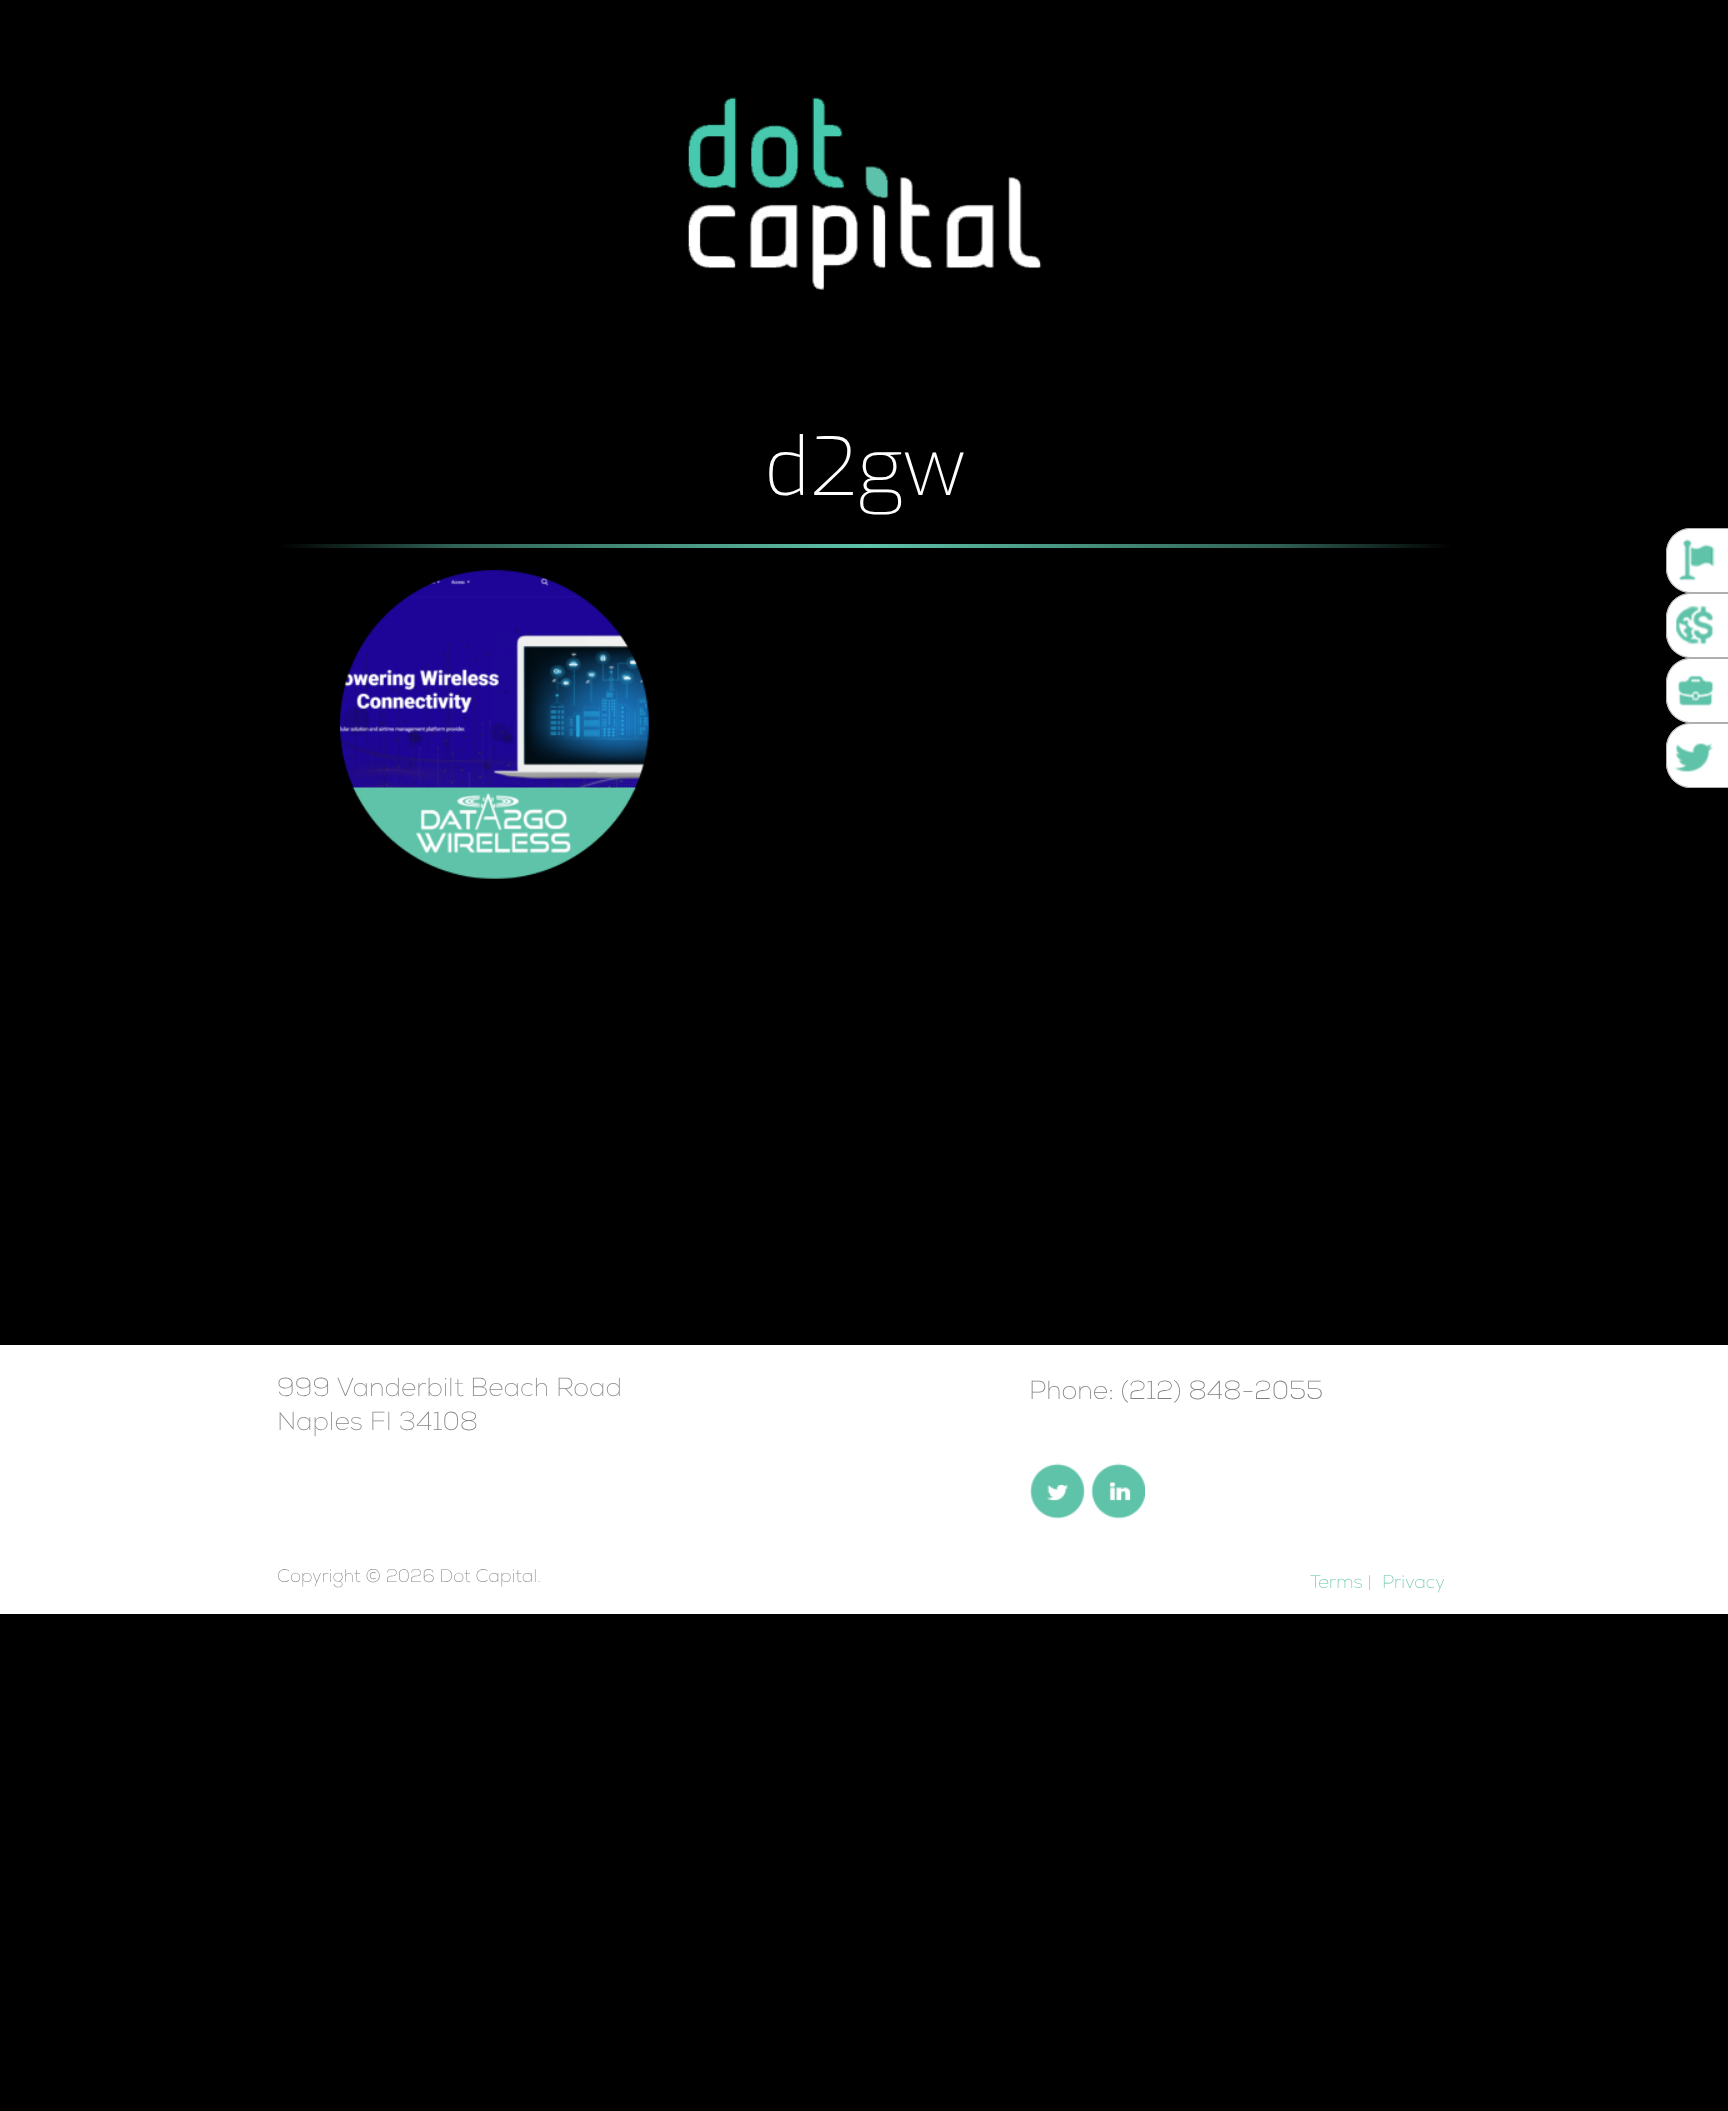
<!DOCTYPE html>
<meta charset="utf-8">
<style>body { margin: 0 } canvas { display: block }</style>
<canvas id="canvas" width="1728" height="2111"></canvas>
<script type="module">
  const canvas = document.getElementById("canvas");
  const g = canvas.getContext("2d");
  g.miterLimit = 4;
  g.fontKerning = "normal";
  function drawText(s, x, y, [font, color]) {
    g.font = font;
    g.fillStyle = color;
    g.fillText(s, x, y);
  }
  function fillBox(x, y, w, h, color) {
    g.fillStyle = color;
    g.fillRect(x, y, w, h);
  }
  async function drawPicture(src, x, y, w, h) {
    const img = new Image();
    img.src = src;
    await img.decode();
    g.drawImage(img, x, y, w, h);
  }
  let gradient;

  const s1 = ["200 80px Exo", "#FFFFFF"];
  const s2 = ["100 26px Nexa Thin", "#888888"];
  const s3 = ["100 26px Nexa Thin", "#7F7F7F"];
  const s4 = ["100 18.25px Nexa Thin", "#888888"];
  const s5 = ["100 18.25px Nexa Thin", "#5FC3A9"];

  fillBox(0, 0, 1728, 2111, "#000000");
  await drawPicture("pic1.png", 687, 97, 355, 193);
  drawText("d2gw", 764, 495, s1);
  gradient = g.createLinearGradient(278, 546, 1453, 546);
  gradient.addColorStop(0, "#000000");
  gradient.addColorStop(0.15, "#306255");
  gradient.addColorStop(0.5, "#5FC3A9");
  gradient.addColorStop(0.85, "#306255");
  gradient.addColorStop(1, "#000000");
  g.fillStyle = gradient;
  g.fillRect(278, 544, 1175, 4);
  await drawPicture("pic2.png", 340, 570, 309, 309);
  g.fillStyle = "#FFFFFF";
  g.beginPath();
  g.moveTo(1691, 528);
  g.lineTo(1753, 528);
  g.lineTo(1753, 593);
  g.lineTo(1691, 593);
  g.bezierCurveTo(1677, 593, 1666, 582, 1666, 568);
  g.lineTo(1666, 553);
  g.bezierCurveTo(1666, 539, 1677, 528, 1691, 528);
  g.closePath();
  g.fill();
  await drawPicture("pic3.png", 1678, 538, 38, 43);
  g.beginPath();
  g.moveTo(1691, 528.5);
  g.lineTo(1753.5, 528.5);
  g.lineTo(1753.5, 592.5);
  g.lineTo(1691, 592.5);
  g.bezierCurveTo(1677.5, 592.5, 1666.5, 581.5, 1666.5, 568);
  g.lineTo(1666.5, 553);
  g.bezierCurveTo(1666.5, 539.5, 1677.5, 528.5, 1691, 528.5);
  g.closePath();
  g.strokeStyle = "#AFAFAF";
  g.stroke();
  g.beginPath();
  g.moveTo(1691, 593);
  g.lineTo(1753, 593);
  g.lineTo(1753, 658);
  g.lineTo(1691, 658);
  g.bezierCurveTo(1677, 658, 1666, 647, 1666, 633);
  g.lineTo(1666, 618);
  g.bezierCurveTo(1666, 604, 1677, 593, 1691, 593);
  g.closePath();
  g.fill();
  await drawPicture("pic4.png", 1675, 605, 39, 40);
  g.beginPath();
  g.moveTo(1691, 593.5);
  g.lineTo(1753.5, 593.5);
  g.lineTo(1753.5, 657.5);
  g.lineTo(1691, 657.5);
  g.bezierCurveTo(1677.5, 657.5, 1666.5, 646.5, 1666.5, 633);
  g.lineTo(1666.5, 618);
  g.bezierCurveTo(1666.5, 604.5, 1677.5, 593.5, 1691, 593.5);
  g.closePath();
  g.stroke();
  g.beginPath();
  g.moveTo(1691, 658);
  g.lineTo(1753, 658);
  g.lineTo(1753, 723);
  g.lineTo(1691, 723);
  g.bezierCurveTo(1677, 723, 1666, 712, 1666, 698);
  g.lineTo(1666, 683);
  g.bezierCurveTo(1666, 669, 1677, 658, 1691, 658);
  g.closePath();
  g.fill();
  await drawPicture("pic5.png", 1678, 675, 36, 31);
  g.beginPath();
  g.moveTo(1691, 658.5);
  g.lineTo(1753.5, 658.5);
  g.lineTo(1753.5, 722.5);
  g.lineTo(1691, 722.5);
  g.bezierCurveTo(1677.5, 722.5, 1666.5, 711.5, 1666.5, 698);
  g.lineTo(1666.5, 683);
  g.bezierCurveTo(1666.5, 669.5, 1677.5, 658.5, 1691, 658.5);
  g.closePath();
  g.stroke();
  g.beginPath();
  g.moveTo(1691, 723);
  g.lineTo(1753, 723);
  g.lineTo(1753, 788);
  g.lineTo(1691, 788);
  g.bezierCurveTo(1677, 788, 1666, 777, 1666, 763);
  g.lineTo(1666, 748);
  g.bezierCurveTo(1666, 734, 1677, 723, 1691, 723);
  g.closePath();
  g.fill();
  await drawPicture("pic6.png", 1674, 743, 39, 29);
  g.beginPath();
  g.moveTo(1691, 723.5);
  g.lineTo(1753.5, 723.5);
  g.lineTo(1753.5, 787.5);
  g.lineTo(1691, 787.5);
  g.bezierCurveTo(1677.5, 787.5, 1666.5, 776.5, 1666.5, 763);
  g.lineTo(1666.5, 748);
  g.bezierCurveTo(1666.5, 734.5, 1677.5, 723.5, 1691, 723.5);
  g.closePath();
  g.stroke();
  fillBox(0, 1345, 1728, 269, "#FFFFFF");
  drawText("999 Vanderbilt Beach Road", 277, 1396, s2);
  drawText("Naples Fl 34108", 277, 1430, s2);
  drawText("Phone: (212) 848-2055", 1029, 1399, s3);
  await drawPicture("pic7.png", 1030, 1463, 55, 56);
  await drawPicture("pic8.png", 1091, 1463, 54, 56);
  drawText("Copyright © 2026 Dot Capital.", 277, 1582, s4);
  drawText("Terms |", 1310, 1588, s5);
  drawText("Privacy", 1382, 1588, s5);
</script>
